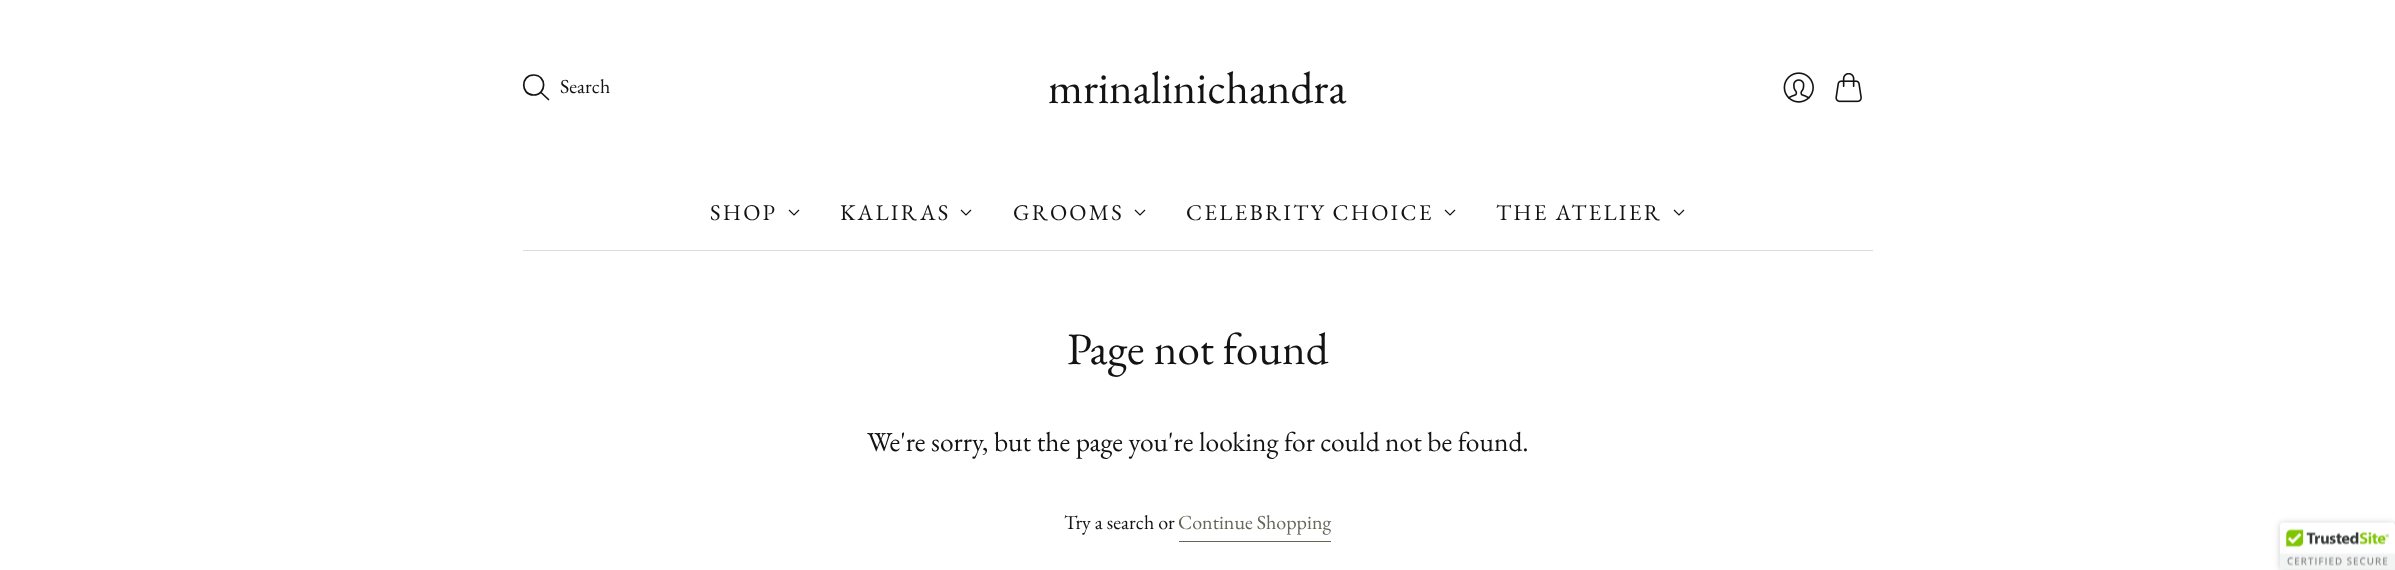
<!DOCTYPE html>
<meta charset="utf-8">
<style>body { margin: 0 } canvas { display: block }</style>
<canvas id="canvas" width="2395" height="570"></canvas>
<script type="module">
  const canvas = document.getElementById("canvas");
  const g = canvas.getContext("2d");
  g.miterLimit = 4;
  g.fontKerning = "normal";
  function drawText(s, x, y, [font, color]) {
    g.font = font;
    g.fillStyle = color;
    g.fillText(s, x, y);
  }
  function fillBox(x, y, w, h, color) {
    g.fillStyle = color;
    g.fillRect(x, y, w, h);
  }
  async function drawPicture(src, x, y, w, h) {
    const img = new Image();
    img.src = src;
    await img.decode();
    g.drawImage(img, x, y, w, h);
  }

  const s1 = ["20px EB Garamond", "#131313"];
  const s2 = ["45px EB Garamond", "#131313"];
  const s3 = ["22.5px EB Garamond", "#131313"];
  const s4 = ["27.5px EB Garamond", "#131313"];
  const s5 = ["20px EB Garamond", "#636859"];

  fillBox(0, 0, 2395, 570, "#FFFFFF");
  g.beginPath();
  g.moveTo(533.5, 95);
  g.bezierCurveTo(547, 95, 547, 75, 533.5, 75);
  g.bezierCurveTo(520.5, 75, 520.5, 95, 533.5, 95);
  g.closePath();
  g.moveTo(548.5, 99.5);
  g.lineTo(541, 92.5);
  g.strokeStyle = "#131313";
  g.lineWidth = 1.7;
  g.lineCap = "round";
  g.lineJoin = "round";
  g.stroke();
  drawText("Search", 560, 93, s1);
  await drawPicture("pic1.png", 1783, 72, 31, 31);
  await drawPicture("pic2.png", 1835, 73, 27, 30);
  fillBox(523, 250, 1350, 1, "#DCDCDC");
  drawText("mrinalinichandra", 1048, 103, s2);
  g.letterSpacing = "2.25px";
  drawText("SHOP", 710, 220, s3);
  g.beginPath();
  g.moveTo(789, 210);
  g.lineTo(794, 215);
  g.lineTo(799, 210);
  g.lineWidth = 1.2;
  g.lineCap = "butt";
  g.lineJoin = "miter";
  g.stroke();
  drawText("KALIRAS", 840, 220, s3);
  g.beginPath();
  g.moveTo(961, 210);
  g.lineTo(966, 215);
  g.lineTo(971, 210);
  g.stroke();
  drawText("GROOMS", 1013, 220, s3);
  g.beginPath();
  g.moveTo(1135, 210);
  g.lineTo(1140, 215);
  g.lineTo(1145, 210);
  g.stroke();
  drawText("CELEBRITY CHOICE", 1186, 220, s3);
  g.beginPath();
  g.moveTo(1445, 210);
  g.lineTo(1450, 215);
  g.lineTo(1455, 210);
  g.stroke();
  drawText("THE ATELIER", 1496, 220, s3);
  g.beginPath();
  g.moveTo(1674, 210);
  g.lineTo(1679, 215);
  g.lineTo(1684, 210);
  g.stroke();
  g.letterSpacing = "0px";
  drawText("Page not found", 1067, 364, s2);
  drawText("We're sorry, but the page you're looking for could not be found.", 867, 451, s4);
  drawText("Try a search or", 1064, 529, s1);
  drawText("Continue Shopping", 1178, 529, s5);
  fillBox(1179, 541, 152, 1, "#636859");
  g.fillStyle = "rgba(0, 0, 0, 0.2)";
  g.filter = "blur(3px)";
  g.beginPath();
  g.roundRect(2280, 523, 115, 47, 2.5);
  g.fill();
  g.filter = "none";
  await drawPicture("pic3.png", 2280, 522, 115, 48);
</script>
